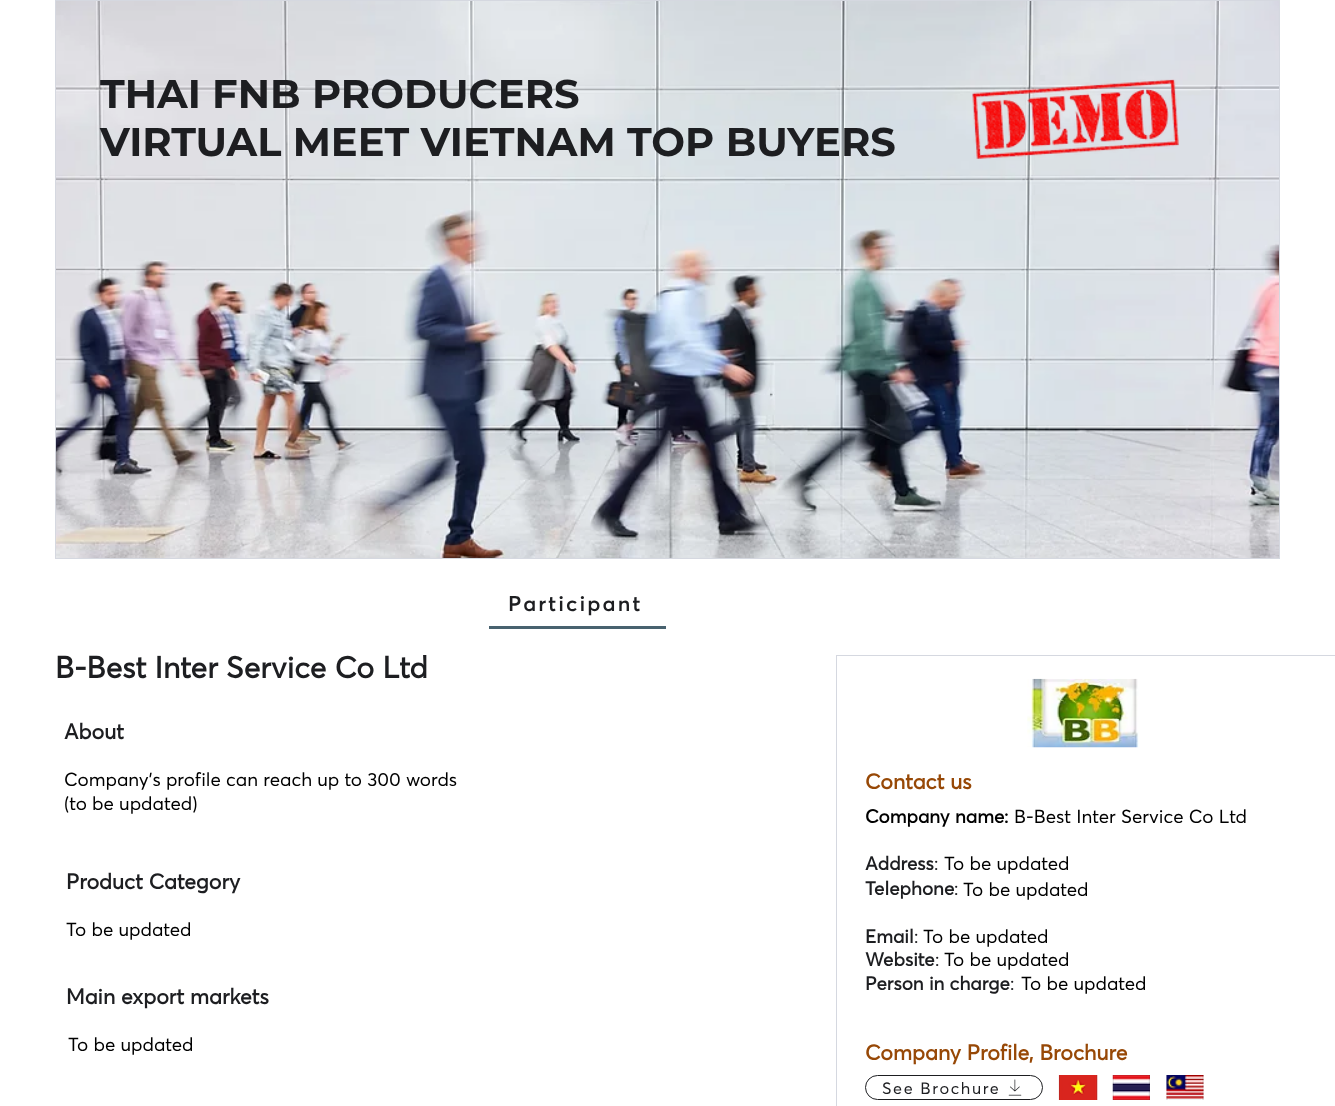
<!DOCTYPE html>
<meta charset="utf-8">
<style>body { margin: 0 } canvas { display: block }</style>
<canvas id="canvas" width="1335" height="1106"></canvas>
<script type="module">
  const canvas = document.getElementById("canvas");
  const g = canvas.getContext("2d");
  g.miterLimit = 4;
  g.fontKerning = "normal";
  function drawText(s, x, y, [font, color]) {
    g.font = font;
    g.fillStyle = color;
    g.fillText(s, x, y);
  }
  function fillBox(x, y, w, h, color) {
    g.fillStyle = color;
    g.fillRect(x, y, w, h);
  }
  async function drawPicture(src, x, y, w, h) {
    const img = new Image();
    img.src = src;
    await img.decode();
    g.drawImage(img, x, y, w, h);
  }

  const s1 = ["bold 40px Montserrat", "#1D1E21"];
  const s2 = ["600 21.25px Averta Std", "#1D1E21"];
  const s3 = ["bold 30px Averta Std", "#1D1E21"];
  const s4 = ["bold 21.25px Averta Std", "#1D1E21"];
  const s5 = ["18.75px Averta Std", "#000000"];
  const s6 = ["bold 21.25px Averta Std", "#974806"];
  const s7 = ["bold 18.75px Averta Std", "#000000"];
  const s8 = ["bold 18.75px Averta Std", "#1D1E21"];
  const s9 = ["18.75px Averta Std", "#1D1E21"];
  const s10 = ["16.25px Averta Std", "#1D1E21"];

  fillBox(0, 0, 1335, 1106, "#FFFFFF");
  await drawPicture("pic1.png", 56, 1, 1223, 557);
  g.strokeStyle = "#D5D8E0";
  g.strokeRect(55.5, 0.5, 1224, 558);
  await drawPicture("pic2.png", 972, 79, 207, 80);
  drawText("THAI FNB PRODUCERS", 100, 108, s1);
  drawText("VIRTUAL MEET VIETNAM TOP BUYERS", 100, 156, s1);
  fillBox(489, 626, 177, 3, "#48626F");
  g.letterSpacing = "2.1px";
  drawText("Participant", 508, 611, s2);
  g.letterSpacing = "0px";
  drawText("B-Best Inter Service Co Ltd", 55, 678, s3);
  drawText("About", 64, 739, s4);
  drawText("Company's profile can reach up to 300 words", 64, 786, s5);
  drawText("(to be updated)", 64, 810, s5);
  drawText("Product Category", 66, 889, s4);
  drawText("To be updated", 66, 936, s5);
  drawText("Main export markets", 66, 1004, s4);
  drawText("To be updated", 68, 1051, s5);
  g.strokeRect(836.5, 655.5, 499, 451);
  await drawPicture("pic3.png", 1027, 678, 112, 70);
  drawText("Contact us", 865, 789, s6);
  drawText("Company name:", 865, 823, s7);
  drawText("B-Best Inter Service Co Ltd", 1014, 823, s5);
  drawText("Address", 865, 870, s8);
  drawText(":", 934, 870, s9);
  drawText("To be updated", 944, 870, s5);
  drawText("Telephone", 865, 895, s8);
  drawText(":", 954, 895, s9);
  drawText("To be updated", 963, 896, s5);
  drawText("Email", 865, 943, s8);
  drawText(":", 914, 943, s9);
  drawText("To be updated", 923, 943, s5);
  drawText("Website", 865, 966, s8);
  drawText(":", 935, 966, s9);
  drawText("To be updated", 944, 966, s5);
  drawText("Person in charge", 865, 990, s8);
  drawText(":", 1010, 990, s9);
  drawText("To be updated", 1021, 990, s5);
  drawText("Company Profile, Brochure", 865, 1060, s6);
  g.beginPath();
  g.roundRect(865.5, 1075.5, 177, 24, 12);
  g.strokeStyle = "#1D1E21";
  g.stroke();
  g.letterSpacing = "1.6px";
  drawText("See Brochure", 882, 1094, s10);
  await drawPicture("pic4.png", 1008, 1079, 14, 17);
  await drawPicture("pic5.png", 1058, 1075, 40, 25);
  await drawPicture("pic6.png", 1112, 1075, 38, 25);
  await drawPicture("pic7.png", 1166, 1075, 38, 25);
</script>
